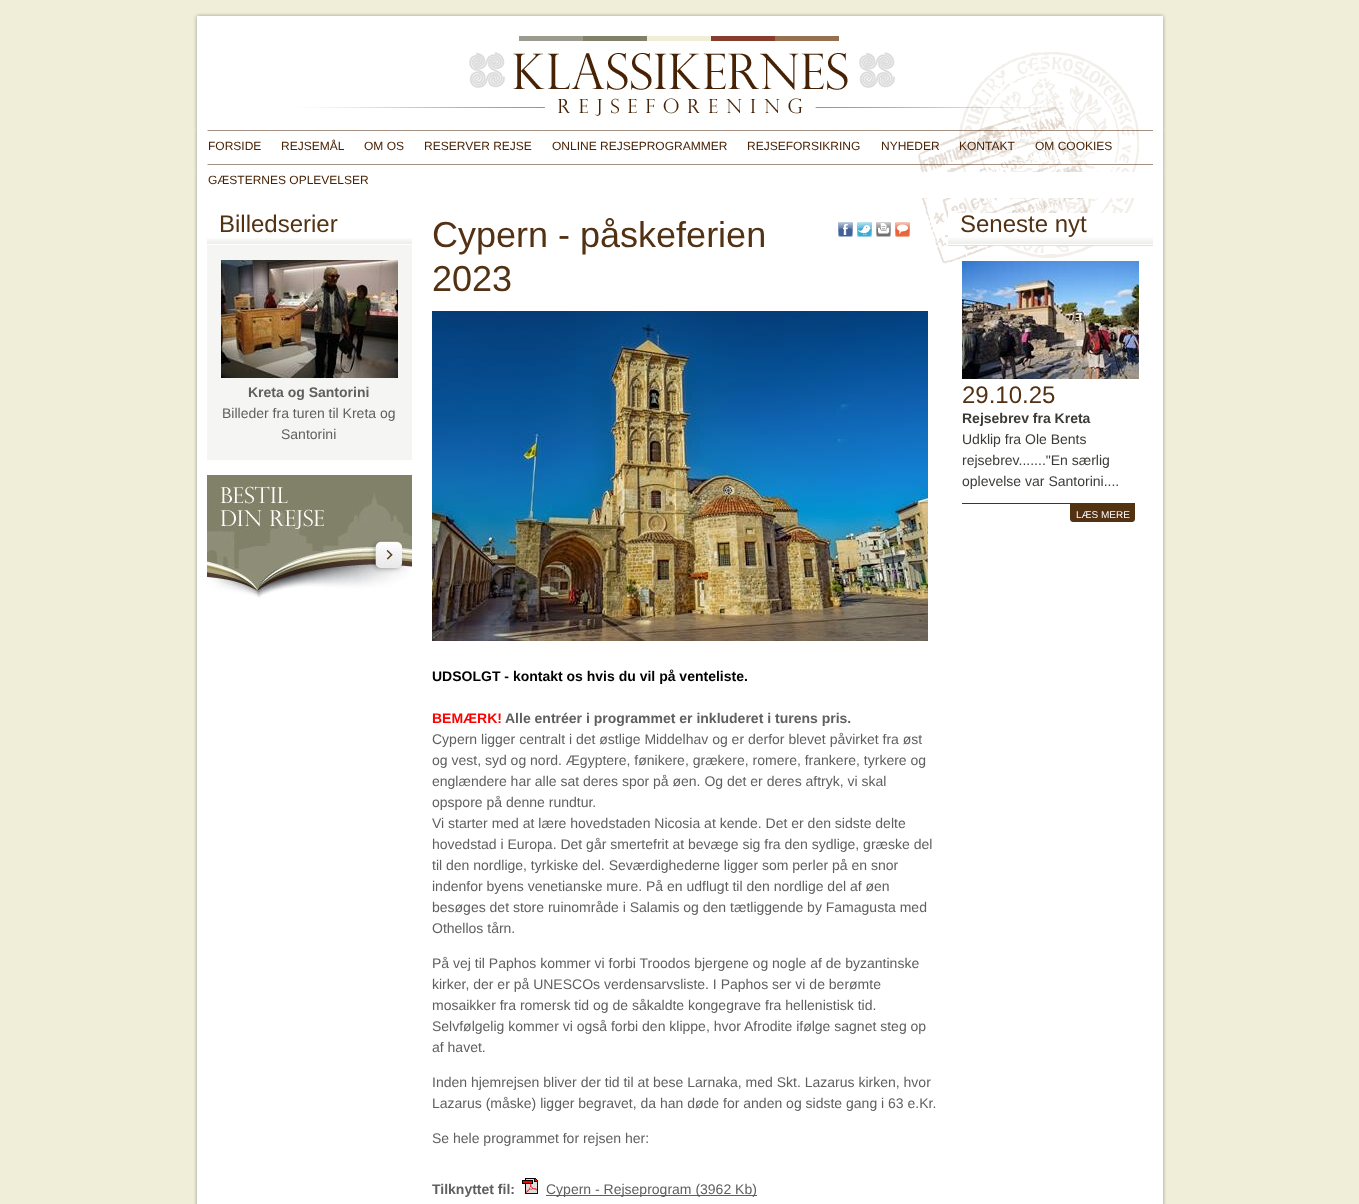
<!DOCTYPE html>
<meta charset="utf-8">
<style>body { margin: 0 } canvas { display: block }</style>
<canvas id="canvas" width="1359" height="1204"></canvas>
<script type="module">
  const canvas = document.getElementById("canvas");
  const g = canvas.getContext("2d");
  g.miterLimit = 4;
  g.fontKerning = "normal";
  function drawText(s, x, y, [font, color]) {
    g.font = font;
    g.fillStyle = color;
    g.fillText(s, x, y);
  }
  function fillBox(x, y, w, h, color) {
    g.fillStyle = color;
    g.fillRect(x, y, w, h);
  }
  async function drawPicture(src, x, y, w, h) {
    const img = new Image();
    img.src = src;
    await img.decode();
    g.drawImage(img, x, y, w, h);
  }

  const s1 = ["12px Liberation Sans", "#472205"];
  const s2 = ["24px Liberation Sans", "#533113"];
  const s3 = ["bold 14px Liberation Sans", "#5F5F5F"];
  const s4 = ["14px Liberation Sans", "#5F5F5F"];
  const s5 = ["36px Liberation Sans", "#533113"];
  const s6 = ["bold 14px Liberation Sans", "#000000"];
  const s7 = ["bold 14px Liberation Sans", "#FF0000"];
  const s8 = ["bold 14px Liberation Sans", "#3B3A36"];
  const s9 = ["14px Liberation Sans", "#3B3A36"];
  const s10 = ["10px Liberation Sans", "#FFFFFF"];

  fillBox(0, 0, 1359, 1204, "#F0EED8");
  await drawPicture("pic1.png", 194, 130, 972, 42);
  await drawPicture("pic2.png", 191, 13, 975, 117);
  drawText("FORSIDE", 208, 150, s1);
  drawText("REJSEMÅL", 281, 150, s1);
  drawText("OM OS", 364, 150, s1);
  drawText("RESERVER REJSE", 424, 150, s1);
  drawText("ONLINE REJSEPROGRAMMER", 552, 150, s1);
  drawText("REJSEFORSIKRING", 747, 150, s1);
  drawText("NYHEDER", 881, 150, s1);
  drawText("KONTAKT", 959, 150, s1);
  drawText("OM COOKIES", 1035, 150, s1);
  await drawPicture("pic3.png", 194, 172, 972, 1032);
  drawText("GÆSTERNES OPLEVELSER", 208, 184, s1);
  await drawPicture("pic4.png", 922, 198, 212, 66);
  await drawPicture("pic5.png", 207, 238, 205, 6);
  drawText("Billedserier", 219, 232, s2);
  fillBox(207, 245, 205, 215, "#F5F5F4");
  await drawPicture("pic6.png", 221, 260, 177, 118);
  drawText("Kreta og Santorini", 248, 397, s3);
  drawText("Billeder fra turen til Kreta og", 222, 418, s4);
  drawText("Santorini", 281, 439, s4);
  await drawPicture("pic7.png", 207, 475, 205, 124);
  drawText("Cypern - påskeferien", 432, 247, s5);
  drawText("2023", 432, 291, s5);
  await drawPicture("pic8.png", 838, 222, 15, 15);
  await drawPicture("pic9.png", 857, 222, 15, 15);
  await drawPicture("pic10.png", 876, 222, 15, 15);
  await drawPicture("pic11.png", 895, 222, 15, 15);
  await drawPicture("pic12.png", 432, 311, 496, 330);
  drawText("UDSOLGT - kontakt os hvis du vil på venteliste.", 432, 681, s6);
  drawText("BEMÆRK!", 432, 723, s7);
  drawText("Alle entréer i programmet er inkluderet i turens pris.", 505, 723, s3);
  drawText("Cypern ligger centralt i det østlige Middelhav og er derfor blevet påvirket fra øst", 432, 744, s4);
  drawText("og vest, syd og nord. Ægyptere, fønikere, grækere, romere, frankere, tyrkere og", 432, 765, s4);
  drawText("englændere har alle sat deres spor på øen. Og det er deres aftryk, vi skal", 432, 786, s4);
  drawText("opspore på denne rundtur.", 432, 807, s4);
  drawText("Vi starter med at lære hovedstaden Nicosia at kende. Det er den sidste delte", 432, 828, s4);
  drawText("hovedstad i Europa. Det går smertefrit at bevæge sig fra den sydlige, græske del", 432, 849, s4);
  drawText("til den nordlige, tyrkiske del. Seværdighederne ligger som perler på en snor", 432, 870, s4);
  drawText("indenfor byens venetianske mure. På en udflugt til den nordlige del af øen", 432, 891, s4);
  drawText("besøges det store ruinområde i Salamis og den tætliggende by Famagusta med", 432, 912, s4);
  drawText("Othellos tårn.", 432, 933, s4);
  drawText("På vej til Paphos kommer vi forbi Troodos bjergene og nogle af de byzantinske", 432, 968, s4);
  drawText("kirker, der er på UNESCOs verdensarvsliste. I Paphos ser vi de berømte", 432, 989, s4);
  drawText("mosaikker fra romersk tid og de såkaldte kongegrave fra hellenistisk tid.", 432, 1010, s4);
  drawText("Selvfølgelig kommer vi også forbi den klippe, hvor Afrodite ifølge sagnet steg op", 432, 1031, s4);
  drawText("af havet.", 432, 1052, s4);
  drawText("Inden hjemrejsen bliver der tid til at bese Larnaka, med Skt. Lazarus kirken, hvor", 432, 1087, s4);
  drawText("Lazarus (måske) ligger begravet, da han døde for anden og sidste gang i 63 e.Kr.", 432, 1108, s4);
  drawText("Se hele programmet for rejsen her:", 432, 1143, s4);
  drawText("Tilknyttet fil:", 432, 1194, s3);
  await drawPicture("pic13.png", 522, 1178, 16, 16);
  fillBox(546, 1195, 211, 1, "#5F5F5F");
  drawText("Cypern - Rejseprogram (3962 Kb)", 546, 1194, s4);
  await drawPicture("pic14.png", 948, 213, 205, 32);
  drawText("Seneste nyt", 960, 232, s2);
  fillBox(948, 245, 205, 1, "#E0E0E0");
  await drawPicture("pic15.png", 962, 261, 177, 118);
  drawText("29.10.25", 962, 403, s2);
  drawText("Rejsebrev fra Kreta", 962, 423, s8);
  drawText("Udklip fra Ole Bents", 962, 444, s9);
  drawText("rejsebrev.......\"En særlig", 962, 465, s9);
  drawText("oplevelse var Santorini....", 962, 486, s9);
  await drawPicture("pic16.png", 962, 503, 173, 19);
  drawText("LÆS MERE", 1076, 518, s10);
</script>
